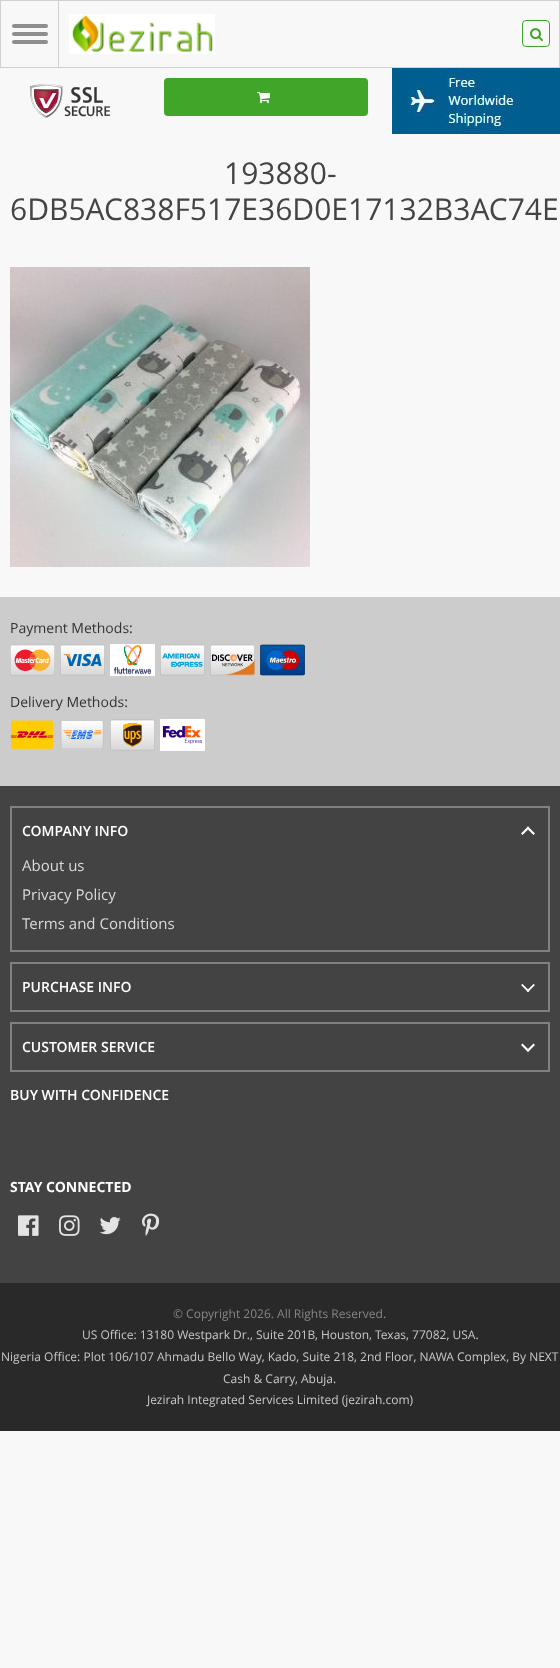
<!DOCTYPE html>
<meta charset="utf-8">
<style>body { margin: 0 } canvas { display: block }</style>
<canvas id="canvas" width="560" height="1668"></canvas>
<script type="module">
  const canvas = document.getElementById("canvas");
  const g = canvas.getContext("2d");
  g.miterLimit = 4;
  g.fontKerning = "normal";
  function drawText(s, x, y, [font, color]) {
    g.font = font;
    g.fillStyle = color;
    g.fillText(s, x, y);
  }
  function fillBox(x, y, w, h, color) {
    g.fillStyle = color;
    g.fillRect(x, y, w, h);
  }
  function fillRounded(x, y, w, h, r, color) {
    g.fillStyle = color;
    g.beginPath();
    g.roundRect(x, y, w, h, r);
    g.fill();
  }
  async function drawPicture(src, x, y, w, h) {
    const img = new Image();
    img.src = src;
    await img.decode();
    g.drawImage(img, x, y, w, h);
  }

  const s1 = ["30px Open Sans", "#444444"];
  const s2 = ["14px Open Sans", "#333333"];
  const s3 = ["600 14px Open Sans", "#FFFFFF"];
  const s4 = ["15px Open Sans", "#DADADA"];
  const s5 = ["bold 14px Open Sans", "#FFFFFF"];
  const s6 = ["12px Open Sans", "#868686"];
  const s7 = ["12px Open Sans", "#C8C8C8"];

  fillBox(0, 0, 560, 1668, "#F8F8F8");
  g.strokeStyle = "#D0D0D0";
  g.strokeRect(0.5, 0.5, 559, 67);
  fillBox(58, 1, 1, 66, "#D0D0D0");
  fillRounded(12, 24, 36, 4, 2, "#8E8E8E");
  fillRounded(12, 32, 36, 4, 2, "#8E8E8E");
  fillRounded(12, 40, 36, 4, 2, "#8E8E8E");
  await drawPicture("pic1.png", 69, 14, 146, 40);
  await drawPicture("pic2.png", 30, 84, 80, 34);
  fillRounded(164, 78, 204, 38, 4, "#40A629");
  await drawPicture("pic3.png", 257, 92, 13, 12);
  fillBox(392, 68, 168, 66, "#005E8E");
  await drawPicture("pic4.png", 407, 68, 113, 65);
  g.beginPath();
  g.roundRect(522.5, 20.5, 27, 26, 3.5);
  g.strokeStyle = "#40A629";
  g.stroke();
  await drawPicture("pic5.png", 530, 28, 13, 14);
  drawText("193880-", 224, 184, s1);
  drawText("6DB5AC838F517E36D0E17132B3AC74E", 10, 220, s1);
  await drawPicture("pic6.png", 10, 267, 300, 300);
  fillBox(0, 786, 560, 497, "#434343");
  fillBox(0, 597, 560, 189, "#CCCCCC");
  drawText("Payment Methods:", 10, 633, s2);
  await drawPicture("pic7.png", 10, 644, 45, 32);
  await drawPicture("pic8.png", 60, 644, 45, 32);
  await drawPicture("pic9.png", 110, 644, 45, 32);
  await drawPicture("pic10.png", 160, 644, 45, 32);
  await drawPicture("pic11.png", 210, 644, 45, 32);
  await drawPicture("pic12.png", 260, 644, 45, 32);
  drawText("Delivery Methods:", 10, 707, s2);
  await drawPicture("pic13.png", 11, 720, 43, 29);
  await drawPicture("pic14.png", 60, 721, 44, 28);
  await drawPicture("pic15.png", 110, 719, 45, 32);
  await drawPicture("pic16.png", 160, 719, 45, 32);
  g.strokeStyle = "#818181";
  g.lineWidth = 2;
  g.strokeRect(11, 807, 538, 144);
  drawText("COMPANY INFO", 22, 836, s3);
  g.beginPath();
  g.moveTo(521, 833.5);
  g.lineTo(528, 826.5);
  g.lineTo(529.5, 828);
  g.lineTo(522.5, 835);
  g.closePath();
  g.fill();
  g.beginPath();
  g.moveTo(526.5, 828);
  g.lineTo(528, 826.5);
  g.lineTo(535, 833.5);
  g.lineTo(533.5, 835);
  g.closePath();
  g.fill();
  drawText("About us", 22, 871, s4);
  drawText("Privacy Policy", 22, 900, s4);
  drawText("Terms and Conditions", 22, 929, s4);
  g.strokeRect(11, 963, 538, 48);
  drawText("PURCHASE INFO", 22, 992, s3);
  g.beginPath();
  g.moveTo(535, 985);
  g.lineTo(528, 992);
  g.lineTo(526.5, 991);
  g.lineTo(533.5, 984);
  g.closePath();
  g.fill();
  g.beginPath();
  g.moveTo(529.5, 991);
  g.lineTo(528, 992);
  g.lineTo(521, 985);
  g.lineTo(522.5, 984);
  g.closePath();
  g.fill();
  g.strokeRect(11, 1023, 538, 48);
  drawText("CUSTOMER SERVICE", 22, 1052, s3);
  g.beginPath();
  g.moveTo(535, 1045);
  g.lineTo(528, 1052);
  g.lineTo(526.5, 1050.5);
  g.lineTo(533.5, 1043.5);
  g.closePath();
  g.fill();
  g.beginPath();
  g.moveTo(529.5, 1050.5);
  g.lineTo(528, 1052);
  g.lineTo(521, 1045);
  g.lineTo(522.5, 1043.5);
  g.closePath();
  g.fill();
  drawText("BUY WITH CONFIDENCE", 10, 1100, s3);
  drawText("STAY CONNECTED", 10, 1192, s5);
  await drawPicture("pic17.png", 18, 1215, 21, 21);
  await drawPicture("pic18.png", 59, 1215, 21, 21);
  await drawPicture("pic19.png", 99, 1217, 22, 18);
  await drawPicture("pic20.png", 142, 1213, 18, 23);
  fillBox(0, 1283, 560, 148, "#292929");
  drawText("© Copyright 2026. All Rights Reserved.", 173, 1318, s6);
  drawText("US Office: 13180 Westpark Dr., Suite 201B, Houston, Texas, 77082, USA.", 82, 1339, s7);
  drawText("Nigeria Office: Plot 106/107 Ahmadu Bello Way, Kado, Suite 218, 2nd Floor, NAWA Complex, By NEXT", 1, 1361, s7);
  drawText("Cash & Carry, Abuja.", 223, 1383, s7);
  drawText("Jezirah Integrated Services Limited (jezirah.com)", 147, 1404, s7);
</script>
